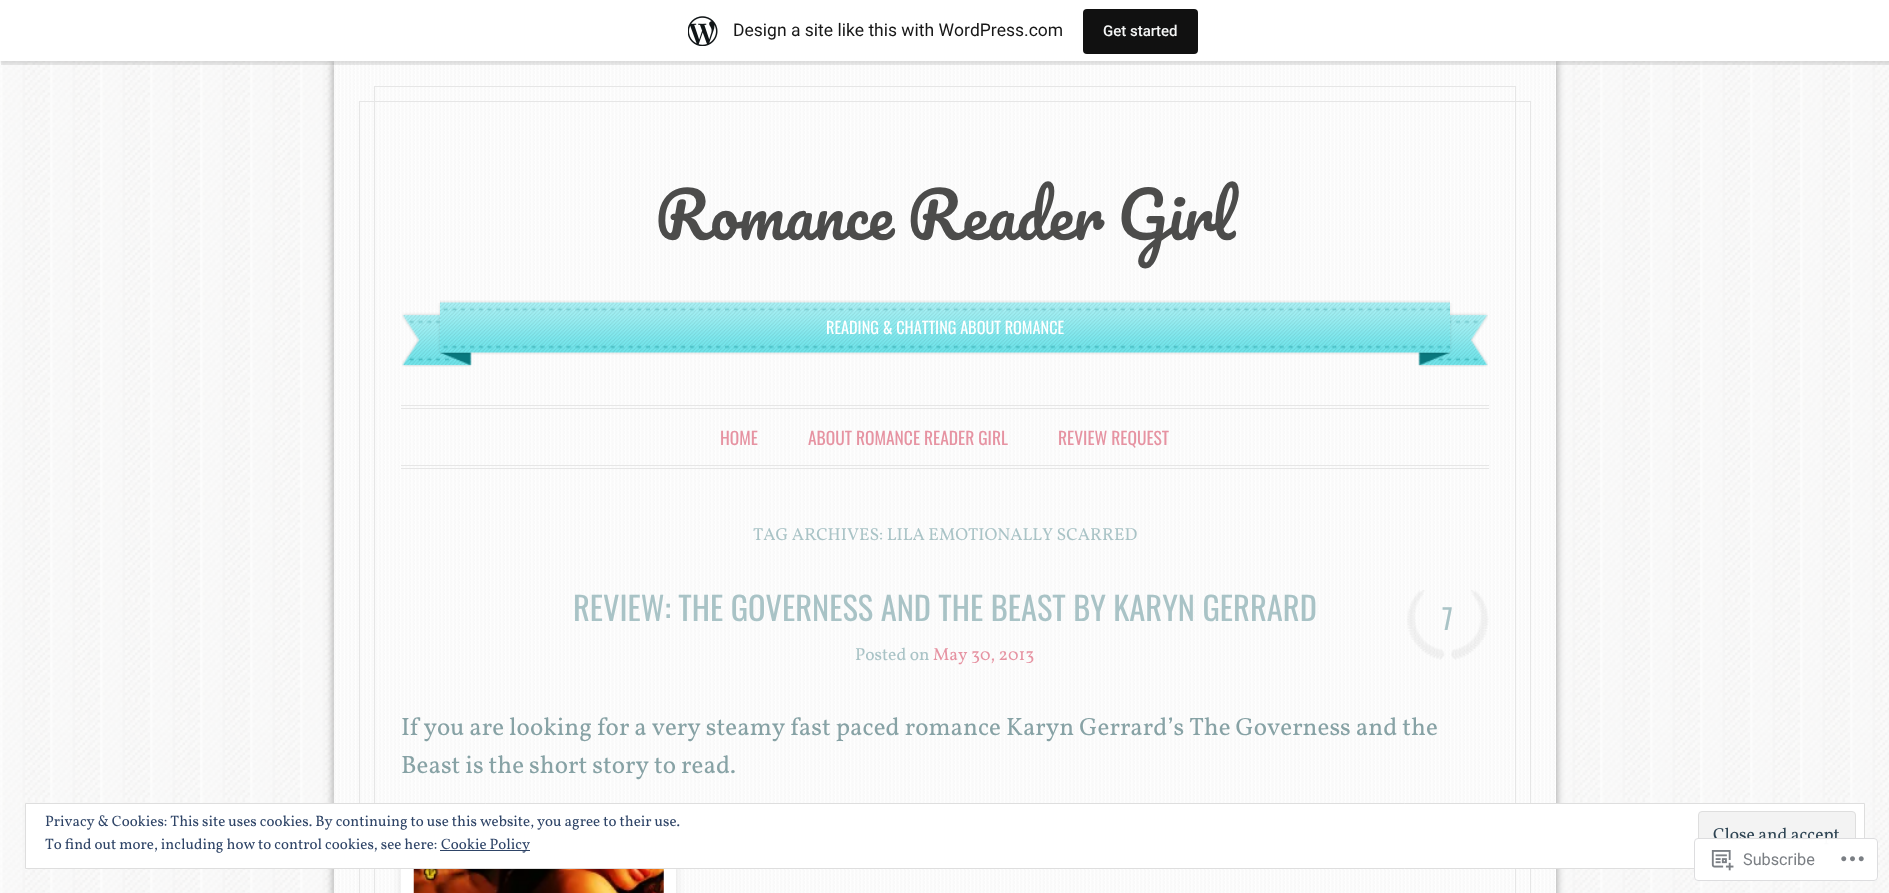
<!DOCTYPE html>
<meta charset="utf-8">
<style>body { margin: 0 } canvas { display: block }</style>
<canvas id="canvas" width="1889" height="893"></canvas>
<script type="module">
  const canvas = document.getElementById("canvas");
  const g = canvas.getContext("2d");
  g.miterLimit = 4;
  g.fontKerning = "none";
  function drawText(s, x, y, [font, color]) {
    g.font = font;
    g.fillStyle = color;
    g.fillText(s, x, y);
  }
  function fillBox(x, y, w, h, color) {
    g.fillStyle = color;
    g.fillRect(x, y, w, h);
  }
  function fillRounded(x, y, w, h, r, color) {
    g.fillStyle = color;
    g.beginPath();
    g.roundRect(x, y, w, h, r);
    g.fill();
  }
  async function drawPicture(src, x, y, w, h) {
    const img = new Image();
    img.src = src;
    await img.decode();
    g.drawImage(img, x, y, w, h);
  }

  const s1 = ["17.5px Roboto", "#171717"];
  const s2 = ["500 15px Roboto", "#F6F7F7"];
  const s3 = ["62.5px Pacifico", "#4C4C4B"];
  const s4 = ["16.25px Oswald", "#FFFFFF"];
  const s5 = ["17.5px Oswald", "#E693A2"];
  const s6 = ["17.5px Vollkorn", "#A9C3C6"];
  const s7 = ["32.5px Oswald", "#A9C3C6"];
  const s8 = ["28px Oswald", "#A9C3C6"];
  const s9 = ["17.5px Vollkorn", "#E693A2"];
  const s10 = ["25px Vollkorn", "#87A2A5"];
  const s11 = ["15px Vollkorn", "#2E4467"];
  const s12 = ["17.5px Vollkorn", "#2E4453"];
  const s13 = ["16.25px Roboto", "#7B7F84"];

  fillBox(0, 0, 1889, 893, "#FFFFFF");
  await drawPicture("pic1.png", 0, 61, 1889, 832);
  g.fillStyle = "rgba(0, 0, 0, 0.4)";
  g.filter = "blur(4px)";
  g.beginPath();
  g.rect(334, 61, 1222, 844);
  g.fill();
  g.filter = "none";
  fillBox(334, 61, 1222, 832, "#FFFFFF");
  await drawPicture("pic3.png", 333, 61, 1222, 832);
  g.fillStyle = "rgba(0, 0, 0, 0.05)";
  g.filter = "blur(1px)";
  g.beginPath();
  g.rect(0, 1, 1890, 62);
  g.fill();
  g.filter = "none";
  g.fillStyle = "rgba(0, 0, 0, 0.08)";
  g.beginPath();
  g.moveTo(1, 61);
  g.lineTo(1, 65);
  g.lineTo(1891, 65);
  g.lineTo(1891, 4);
  g.lineTo(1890, 4);
  g.lineTo(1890, 61);
  g.closePath();
  g.fill();
  fillBox(0, 0, 1889, 61, "#FFFFFF");
  await drawPicture("pic2.png", 688, 16, 30, 30);
  drawText("Design a site like this with WordPress.com", 733, 36, s1);
  fillRounded(1083, 9, 115, 45, 4, "#111111");
  drawText("Get started", 1103, 36, s2);
  g.strokeStyle = "#E6E6E6";
  g.strokeRect(359.5, 101.5, 1171, 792);
  g.strokeRect(374.5, 86.5, 1141, 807);
  g.wordSpacing = "-3px";
  drawText("Romance Reader Girl", 655, 240, s3);
  await drawPicture("pic4.png", 402, 303, 70, 64);
  await drawPicture("pic6.png", 1418, 303, 70, 64);
  await drawPicture("pic5.png", 440, 300, 1010, 55);
  g.wordSpacing = "0px";
  drawText("READING & CHATTING ABOUT ROMANCE", 826, 334, s4);
  fillBox(401, 405, 1088, 1, "#E6E6E6");
  fillBox(401, 408, 1088, 1, "#E6E6E6");
  fillBox(401, 465, 1088, 1, "#E6E6E6");
  fillBox(401, 468, 1088, 1, "#E6E6E6");
  drawText("HOME", 720, 445, s5);
  drawText("ABOUT ROMANCE READER GIRL", 808, 445, s5);
  drawText("REVIEW REQUEST", 1058, 445, s5);
  drawText("TAG ARCHIVES: LILA EMOTIONALLY SCARRED", 753, 540, s6);
  drawText("REVIEW: THE GOVERNESS AND THE BEAST BY KARYN GERRARD", 573, 621, s7);
  await drawPicture("pic7.png", 1407, 590, 82, 70);
  drawText("7", 1442, 630, s8);
  drawText("Posted on", 855, 660, s6);
  drawText("May 30, 2013", 933, 660, s9);
  drawText("If you are looking for a very steamy fast paced romance Karyn Gerrard’s The Governess and the", 401, 735, s10);
  drawText("Beast is the short story to read.", 401, 773, s10);
  g.fillStyle = "rgba(0, 0, 0, 0.1)";
  g.filter = "blur(4px)";
  g.beginPath();
  g.rect(401, 833, 275, 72);
  g.fill();
  g.filter = "none";
  fillBox(401, 869, 275, 24, "#FFFFFF");
  await drawPicture("pic8.png", 413, 869, 251, 24);
  g.beginPath();
  g.rect(25.5, 803.5, 1839, 65);
  g.fill();
  g.strokeStyle = "#DEDEDE";
  g.stroke();
  drawText("Privacy & Cookies: This site uses cookies. By continuing to use this website,", 45, 826, s11);
  drawText("you agree to their use.", 537, 826, s11);
  drawText("To find out more, including how to control cookies, see here:", 45, 849, s11);
  fillBox(440, 850, 90, 1, "#2E4467");
  drawText("Cookie Policy", 441, 849, s11);
  g.fillStyle = "#F3F3F3";
  g.beginPath();
  g.roundRect(1698.5, 811.5, 157, 48, 3.5);
  g.fill();
  g.stroke();
  drawText("Close and accept", 1713, 840, s12);
  fillRounded(1694, 838, 184, 43, 4, "rgba(255, 255, 255, 0.98)");
  g.beginPath();
  g.roundRect(1694.5, 838.5, 183, 42, 3.5);
  g.strokeStyle = "rgba(220, 220, 222, 0.98)";
  g.stroke();
  await drawPicture("pic9.png", 1711, 850, 23, 21);
  drawText("Subscribe", 1743, 865, s13);
  await drawPicture("pic10.png", 1841, 856, 23, 6);
</script>
